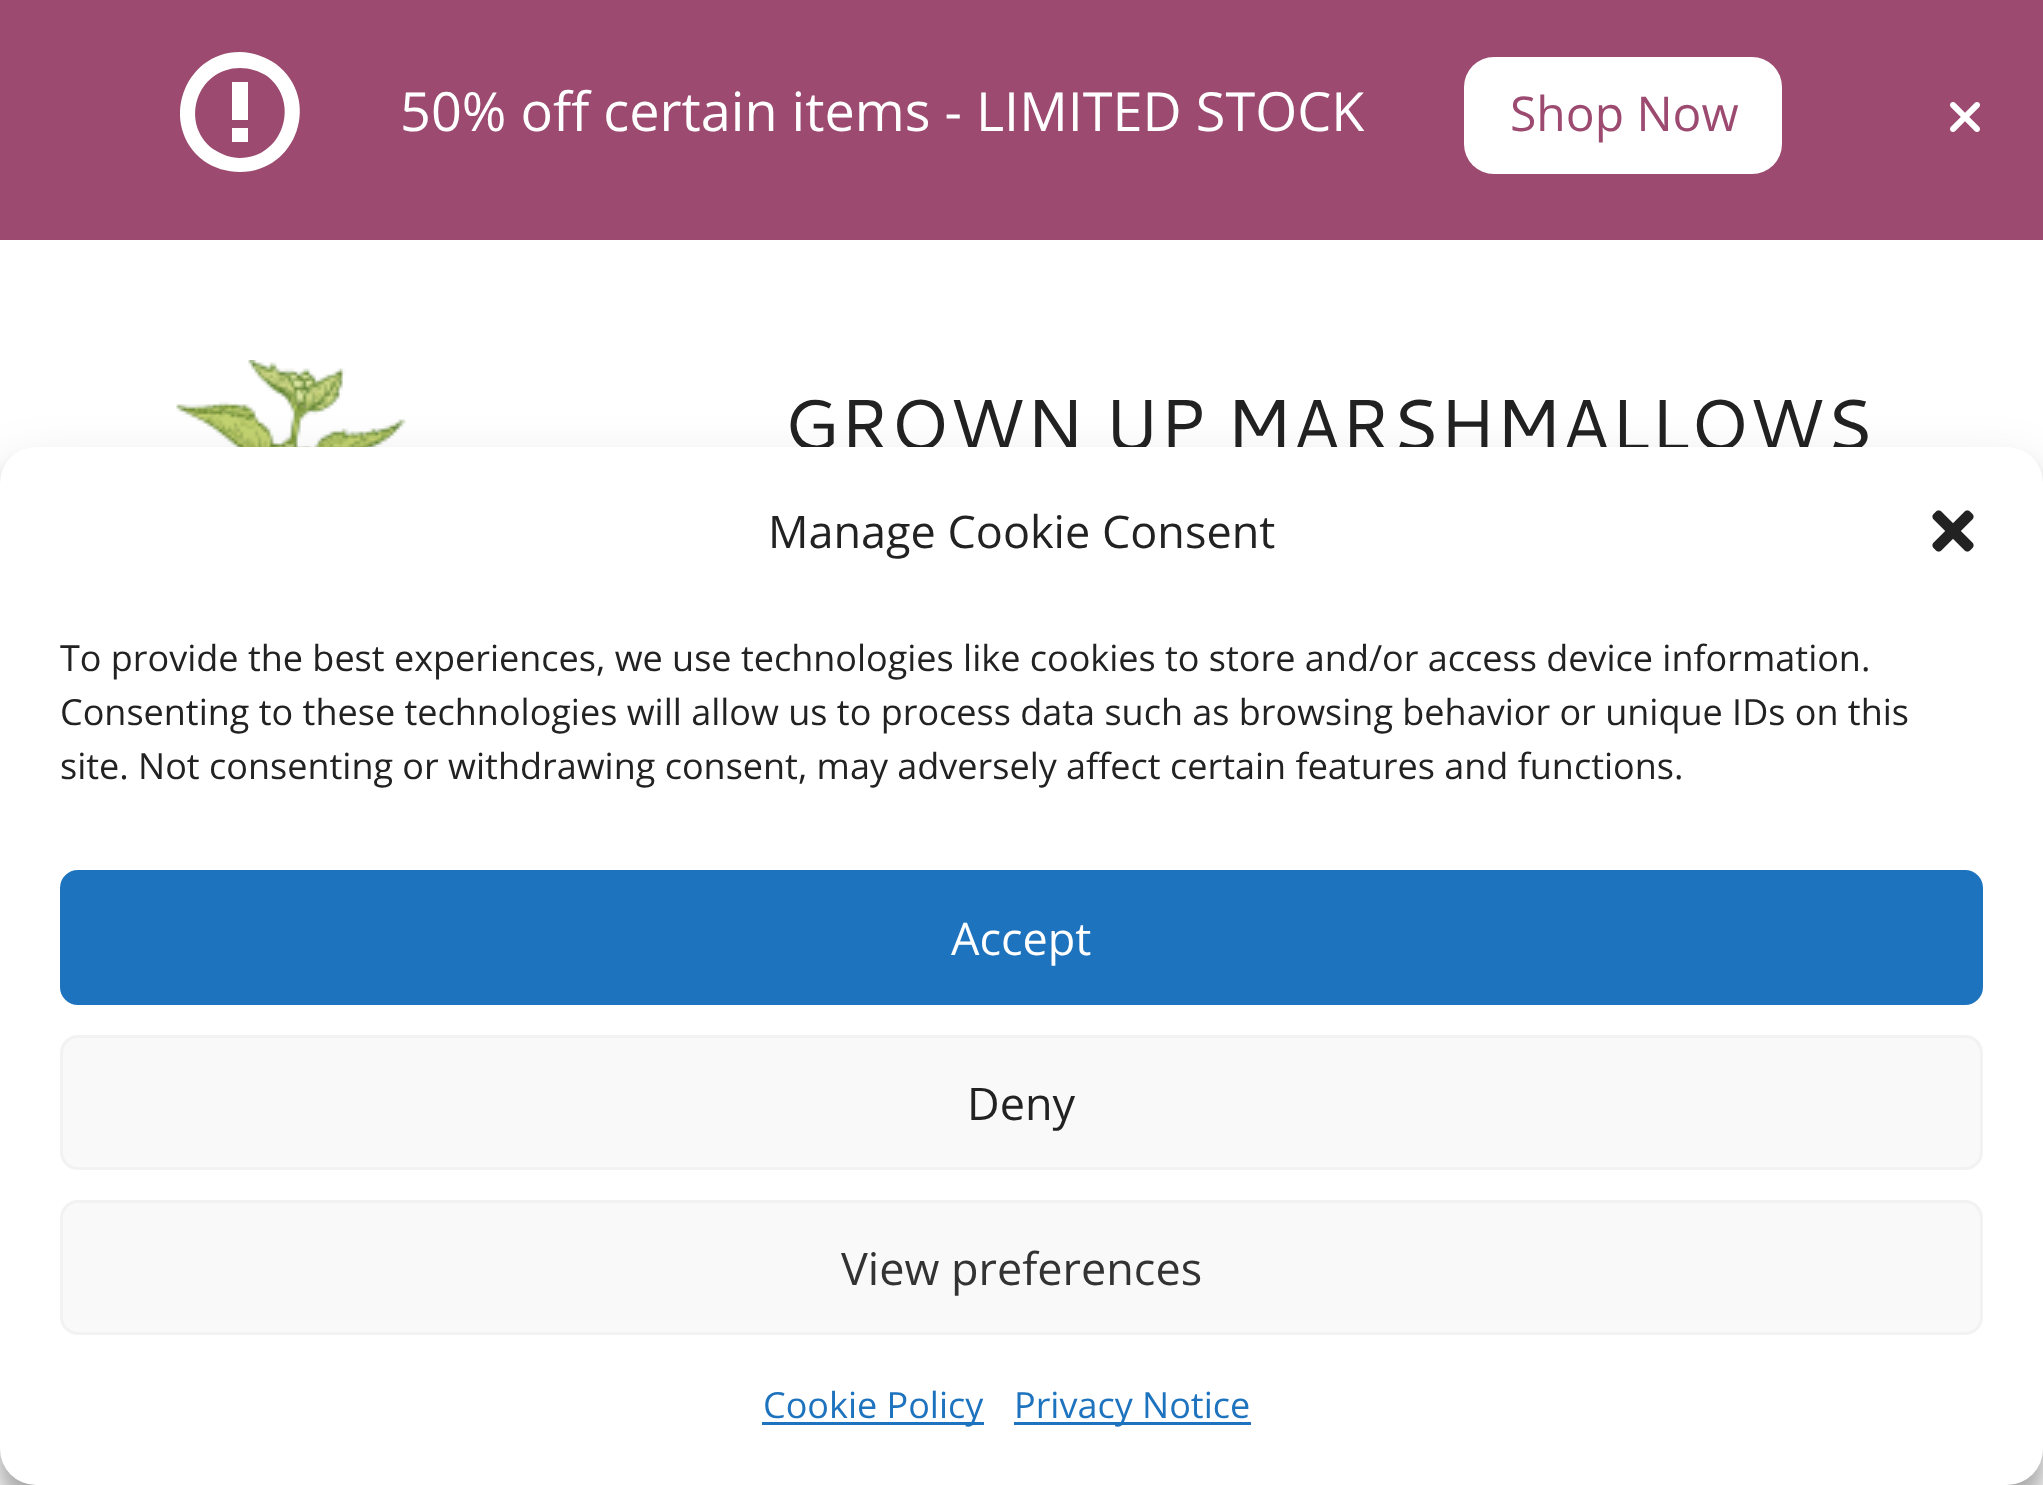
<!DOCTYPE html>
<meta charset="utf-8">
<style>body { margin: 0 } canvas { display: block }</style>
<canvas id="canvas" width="2043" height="1485"></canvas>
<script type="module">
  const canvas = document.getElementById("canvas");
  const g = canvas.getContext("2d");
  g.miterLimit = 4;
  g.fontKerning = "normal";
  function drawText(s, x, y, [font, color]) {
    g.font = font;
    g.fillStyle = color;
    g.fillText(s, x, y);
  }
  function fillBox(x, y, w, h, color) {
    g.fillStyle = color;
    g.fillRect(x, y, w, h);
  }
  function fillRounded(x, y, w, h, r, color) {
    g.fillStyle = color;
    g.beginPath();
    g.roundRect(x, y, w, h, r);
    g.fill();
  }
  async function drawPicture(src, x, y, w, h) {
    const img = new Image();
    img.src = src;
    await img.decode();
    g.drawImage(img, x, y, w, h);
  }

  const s1 = ["54px Open Sans", "#FFFFFF"];
  const s2 = ["48px Open Sans", "#9C4A70"];
  const s3 = ["72px Cantarell", "#222222"];
  const s4 = ["45px Open Sans", "#222222"];
  const s5 = ["36px Open Sans", "#222222"];
  const s6 = ["45px Open Sans", "#FFFFFF"];
  const s7 = ["45px Open Sans", "#333333"];
  const s8 = ["36px Open Sans", "#1E73BE"];

  fillBox(0, 0, 2043, 1485, "#FFFFFF");
  fillBox(0, 0, 2043, 240, "#9C4A70");
  g.fillStyle = "#FFFFFF";
  g.beginPath();
  g.moveTo(240, 172);
  g.bezierCurveTo(227, 172, 214, 168, 204, 161);
  g.bezierCurveTo(158, 126, 183, 52, 240, 52);
  g.bezierCurveTo(253, 52, 266, 57, 276, 64);
  g.bezierCurveTo(322, 99, 297, 172, 240, 172);
  g.closePath();
  g.moveTo(240, 68);
  g.bezierCurveTo(197, 68, 179, 123, 213, 149);
  g.bezierCurveTo(221, 154, 230, 158, 240, 158);
  g.bezierCurveTo(283, 158, 301, 102, 267, 76);
  g.bezierCurveTo(259, 71, 250, 68, 240, 68);
  g.closePath();
  g.moveTo(232, 128);
  g.lineTo(248, 128);
  g.lineTo(248, 142);
  g.lineTo(232, 142);
  g.closePath();
  g.moveTo(232, 82);
  g.lineTo(248, 82);
  g.lineTo(248, 120);
  g.lineTo(232, 120);
  g.closePath();
  g.fill();
  drawText("50% off certain items - LIMITED STOCK", 400, 131, s1);
  fillRounded(1464, 57, 318, 117, 30, "#FFFFFF");
  drawText("Shop Now", 1510, 131, s2);
  await drawPicture("pic1.png", 1950, 102, 30, 30);
  await drawPicture("pic2.png", 176, 360, 230, 87);
  drawText("GROWN UP MARSHMALLOWS", 783, 450, s3);
  g.fillStyle = "rgba(0, 0, 0, 0.23)";
  g.filter = "blur(9px)";
  g.beginPath();
  g.roundRect(0, 465, 2043, 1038, 36);
  g.fill();
  g.filter = "none";
  g.fillStyle = "rgba(0, 0, 0, 0.19)";
  g.filter = "blur(30px)";
  g.beginPath();
  g.roundRect(0, 477, 2043, 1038, 36);
  g.fill();
  g.filter = "none";
  fillRounded(0, 447, 2043, 1038, 36, "#FFFFFF");
  drawText("Manage Cookie Consent", 768, 548, s4);
  await drawPicture("pic3.png", 1932, 510, 42, 42);
  drawText("To provide the best experiences, we use technologies like cookies to store and/or access device information.", 60, 671, s5);
  drawText("Consenting to these technologies will allow us to process data such as browsing behavior or unique IDs on this", 60, 725, s5);
  drawText("site. Not consenting or withdrawing consent, may adversely affect certain features and functions.", 60, 779, s5);
  g.fillStyle = "#1E73BE";
  g.beginPath();
  g.roundRect(61.5, 871.5, 1920, 132, 16.5);
  g.fill();
  g.strokeStyle = "#1E73BE";
  g.lineWidth = 3;
  g.stroke();
  drawText("Accept", 951, 955, s6);
  g.fillStyle = "#F9F9F9";
  g.beginPath();
  g.roundRect(61.5, 1036.5, 1920, 132, 16.5);
  g.fill();
  g.strokeStyle = "#F2F2F2";
  g.stroke();
  drawText("Deny", 967, 1120, s4);
  g.fillStyle = "#F9F9F9";
  g.beginPath();
  g.roundRect(61.5, 1201.5, 1920, 132, 16.5);
  g.fill();
  g.stroke();
  drawText("View preferences", 841, 1285, s7);
  fillBox(762, 1422, 222, 3, "#1E73BE");
  drawText("Cookie Policy", 763, 1418, s8);
  fillBox(1014, 1422, 237, 3, "#1E73BE");
  drawText("Privacy Notice", 1014, 1418, s8);
</script>
